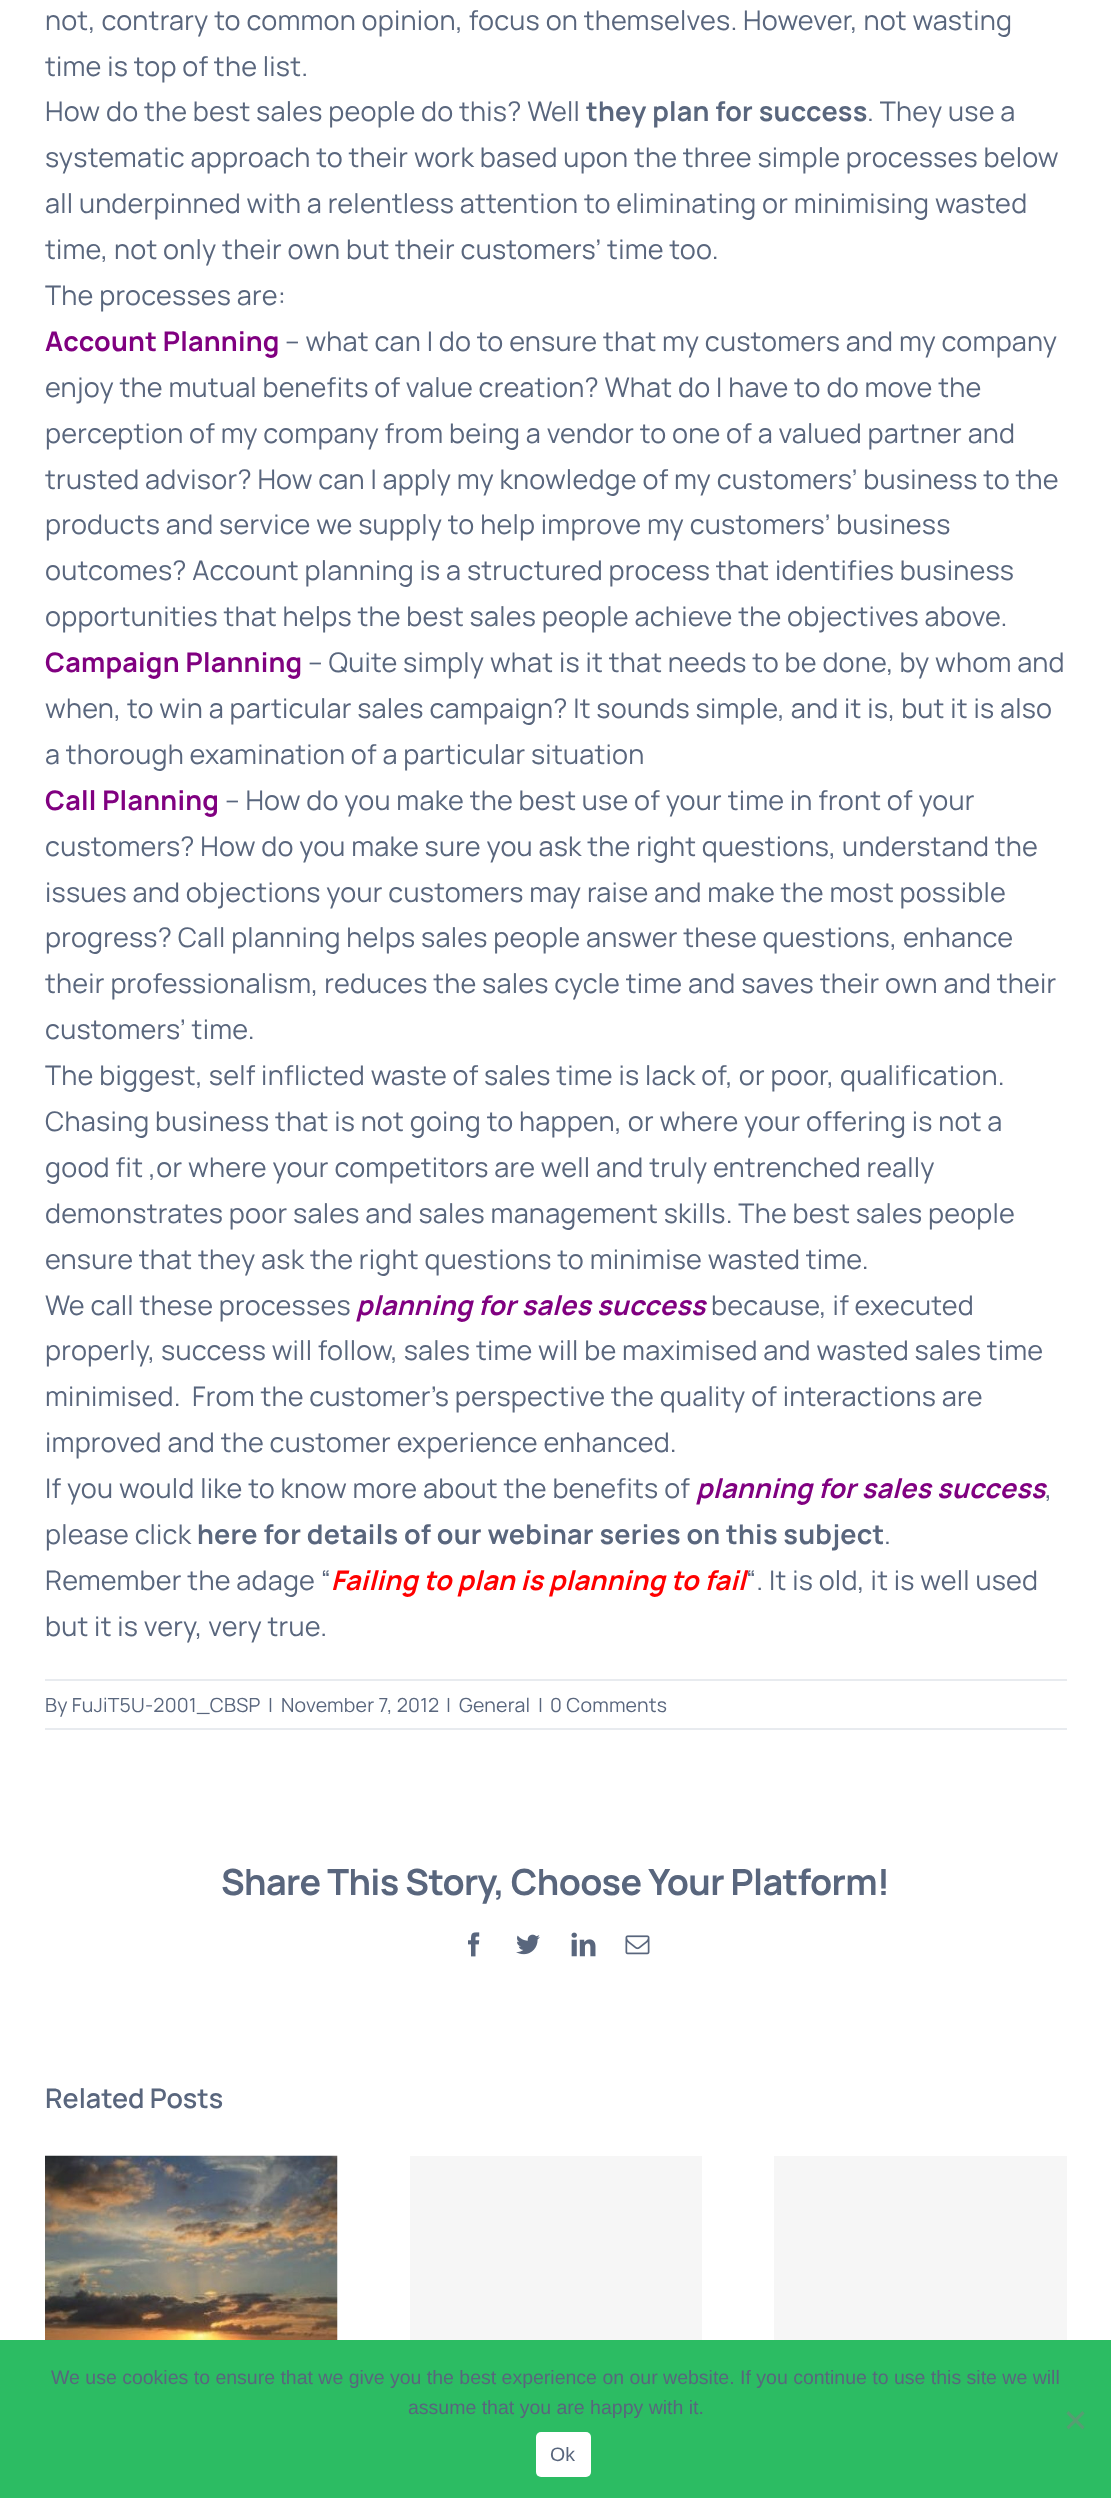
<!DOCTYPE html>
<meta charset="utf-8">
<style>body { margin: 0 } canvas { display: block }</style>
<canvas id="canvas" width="1111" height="2498"></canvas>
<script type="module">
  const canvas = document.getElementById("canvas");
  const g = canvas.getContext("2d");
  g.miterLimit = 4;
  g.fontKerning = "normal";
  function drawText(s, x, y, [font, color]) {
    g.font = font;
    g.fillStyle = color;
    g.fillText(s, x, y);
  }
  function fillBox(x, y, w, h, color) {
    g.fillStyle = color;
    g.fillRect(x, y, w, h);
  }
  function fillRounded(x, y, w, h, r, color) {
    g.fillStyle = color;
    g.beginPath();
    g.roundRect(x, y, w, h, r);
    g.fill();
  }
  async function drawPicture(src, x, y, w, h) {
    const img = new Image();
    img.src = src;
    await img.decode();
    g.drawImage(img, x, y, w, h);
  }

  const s1 = ["27px Manrope", "#59667D"];
  const s2 = ["bold 27px Manrope", "#59667D"];
  const s3 = ["bold 27px Manrope", "#800080"];
  const s4 = ["italic bold 27px Manrope", "#800080"];
  const s5 = ["italic bold 27px Manrope", "#FF0000"];
  const s6 = ["19.5px Manrope", "#59667D"];
  const s7 = ["bold 36px Manrope", "#59667D"];
  const s8 = ["600 27px Manrope", "#59667D"];
  const s9 = ["19.5px Liberation Sans", "#59667D"];

  fillBox(0, 0, 1111, 2498, "#FFFFFF");
  g.letterSpacing = "0.22px";
  drawText("not, contrary to common opinion, focus on themselves. However, not wasting", 45, 30, s1);
  drawText("time is top of the list.", 45, 76, s1);
  drawText("How do the best sales people do this? Well", 45, 121, s1);
  drawText("they plan for success", 586, 121, s2);
  drawText(". They use a", 867, 121, s1);
  drawText("systematic approach to their work based upon the three simple processes below", 45, 167, s1);
  drawText("all underpinned with a relentless attention to eliminating or minimising wasted", 45, 213, s1);
  drawText("time, not only their own but their customers’ time too.", 45, 259, s1);
  drawText("The processes are:", 45, 305, s1);
  drawText("Account Planning", 45, 351, s3);
  drawText("– what can I do to ensure that my customers and my company", 285, 351, s1);
  drawText("enjoy the mutual benefits of value creation? What do I have to do move the", 45, 397, s1);
  drawText("perception of my company from being a vendor to one of a valued partner and", 45, 443, s1);
  drawText("trusted advisor? How can I apply my knowledge of my customers’ business to the", 45, 489, s1);
  drawText("products and service we supply to help improve my customers’ business", 45, 534, s1);
  drawText("outcomes? Account planning is a structured process that identifies business", 45, 580, s1);
  drawText("opportunities that helps the best sales people achieve the objectives above.", 45, 626, s1);
  drawText("Campaign Planning", 45, 672, s3);
  drawText("– Quite simply what is it that needs to be done, by whom and", 308, 672, s1);
  drawText("when, to win a particular sales campaign? It sounds simple, and it is, but it is also", 45, 718, s1);
  drawText("a thorough examination of a particular situation", 45, 764, s1);
  drawText("Call Planning", 45, 810, s3);
  drawText("– How do you make the best use of your time in front of your", 225, 810, s1);
  drawText("customers? How do you make sure you ask the right questions, understand the", 45, 856, s1);
  drawText("issues and objections your customers may raise and make the most possible", 45, 902, s1);
  drawText("progress? Call planning helps sales people answer these questions, enhance", 45, 947, s1);
  drawText("their professionalism, reduces the sales cycle time and saves their own and their", 45, 993, s1);
  drawText("customers’ time.", 45, 1039, s1);
  drawText("The biggest, self inflicted waste of sales time is lack of, or poor, qualification.", 45, 1085, s1);
  drawText("Chasing business that is not going to happen, or where your offering is not a", 45, 1131, s1);
  drawText("good fit ,or where your competitors are well and truly entrenched really", 45, 1177, s1);
  drawText("demonstrates poor sales and sales management skills. The best sales people", 45, 1223, s1);
  drawText("ensure that they ask the right questions to minimise wasted time.", 45, 1269, s1);
  drawText("We call these processes", 45, 1315, s1);
  drawText("planning for sales success", 356, 1315, s4);
  drawText("because, if executed", 711, 1315, s1);
  drawText("properly, success will follow, sales time will be maximised and wasted sales time", 45, 1360, s1);
  drawText("minimised.  From the customer’s perspective the quality of interactions are", 45, 1406, s1);
  drawText("improved and the customer experience enhanced.", 45, 1452, s1);
  drawText("If you would like to know more about the benefits of", 45, 1498, s1);
  drawText("planning for sales success", 696, 1498, s4);
  drawText(",", 1045, 1498, s1);
  drawText("please click", 45, 1544, s1);
  drawText("here for details of our webinar series on this subject", 197, 1544, s2);
  drawText(".", 884, 1544, s1);
  drawText("Remember the adage “", 45, 1590, s1);
  drawText("Failing to plan is planning to fail", 331, 1590, s5);
  drawText("“. It is old, it is well used", 746, 1590, s1);
  drawText("but it is very, very true.", 45, 1636, s1);
  fillBox(45, 1679, 1022, 2, "#E8EBEF");
  fillBox(45, 1728, 1022, 2, "#E8EBEF");
  drawText("By FuJiT5U-2001_CBSP", 45, 1712, s6);
  drawText("|", 268, 1712, s6);
  drawText("November 7, 2012", 281, 1712, s6);
  drawText("|", 446, 1712, s6);
  drawText("General", 459, 1712, s6);
  drawText("|", 538, 1712, s6);
  drawText("0 Comments", 550, 1712, s6);
  g.letterSpacing = "-0.6px";
  drawText("Share This Story, Choose Your Platform!", 221, 1895, s7);
  await drawPicture("pic1.png", 468, 1932, 12, 25);
  await drawPicture("pic2.png", 516, 1934, 24, 21);
  await drawPicture("pic3.png", 571, 1932, 25, 25);
  await drawPicture("pic4.png", 625, 1935, 25, 20);
  g.letterSpacing = "0px";
  drawText("Related Posts", 45, 2108, s8);
  await drawPicture("pic5.png", 45, 2155, 293, 185);
  fillBox(410, 2156, 292, 184, "#F6F6F6");
  fillBox(774, 2156, 293, 184, "#F6F6F6");
  fillBox(0, 2340, 1111, 158, "#2CBC63");
  drawText("We use cookies to ensure that we give you the best experience on our website. If you continue to use this site we will", 51, 2384, s9);
  drawText("assume that you are happy with it.", 408, 2414, s9);
  g.fillStyle = "#569E72";
  g.beginPath();
  g.moveTo(1082.5, 2411);
  g.lineTo(1084.5, 2413.5);
  g.lineTo(1068.5, 2429.5);
  g.lineTo(1066.5, 2427);
  g.closePath();
  g.fill();
  g.beginPath();
  g.moveTo(1066.5, 2413.5);
  g.lineTo(1068.5, 2411);
  g.lineTo(1084.5, 2427);
  g.lineTo(1082.5, 2429.5);
  g.closePath();
  g.fill();
  fillRounded(536, 2432, 55, 45, 5, "#FFFFFF");
  drawText("Ok", 550, 2461, s9);
</script>
